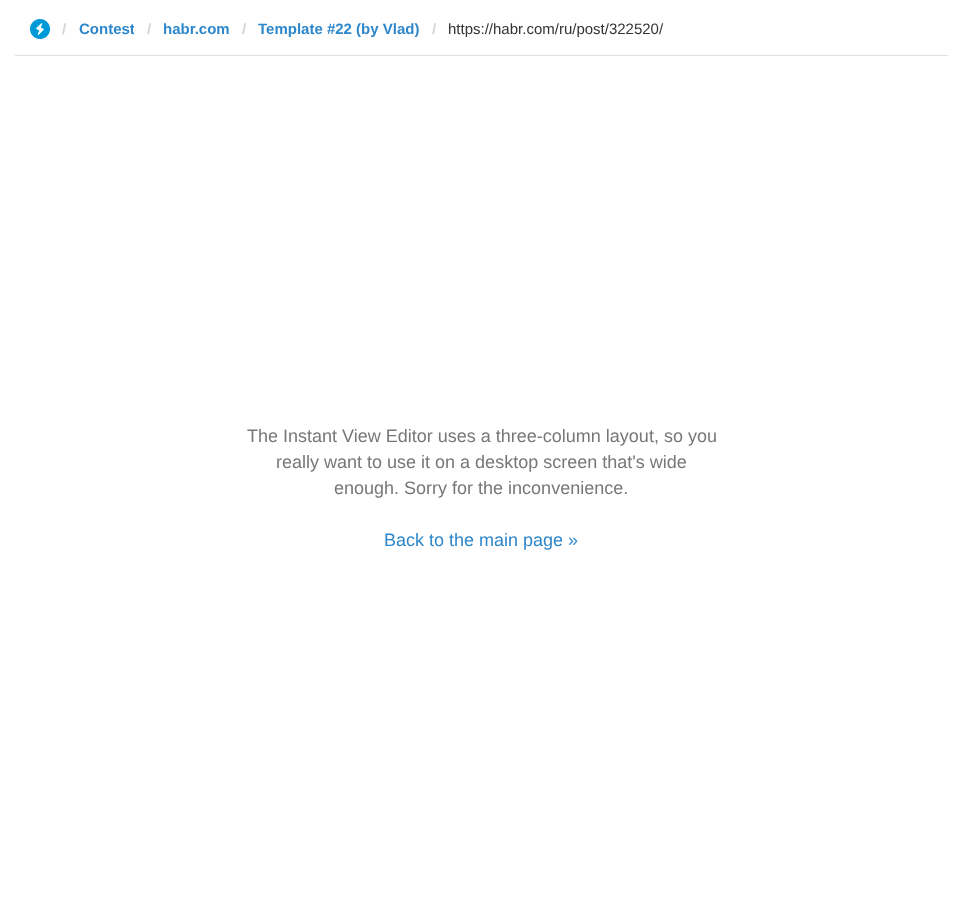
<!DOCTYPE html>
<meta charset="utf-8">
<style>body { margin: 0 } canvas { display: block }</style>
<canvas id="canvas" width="963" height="921"></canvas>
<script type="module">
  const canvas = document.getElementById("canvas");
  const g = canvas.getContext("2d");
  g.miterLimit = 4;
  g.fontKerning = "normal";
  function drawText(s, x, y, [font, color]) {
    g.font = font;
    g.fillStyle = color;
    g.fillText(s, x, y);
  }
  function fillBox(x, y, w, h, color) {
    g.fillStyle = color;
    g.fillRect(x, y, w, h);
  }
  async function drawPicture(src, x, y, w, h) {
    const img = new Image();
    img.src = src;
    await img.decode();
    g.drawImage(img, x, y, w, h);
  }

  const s1 = ["bold 15px Liberation Sans", "#D4D4D4"];
  const s2 = ["bold 15px Liberation Sans", "#2E87CA"];
  const s3 = ["15px Liberation Sans", "#333333"];
  const s4 = ["18px Liberation Sans", "#777777"];
  const s5 = ["18px Liberation Sans", "#2E87CA"];

  fillBox(0, 0, 963, 921, "#FFFFFF");
  fillBox(15, 55, 933, 1, "#E0E0E0");
  await drawPicture("pic1.png", 30, 19, 20, 20);
  drawText("/", 62, 34, s1);
  g.save();
  g.beginPath();
  g.rect(79, 19, 55, 20);
  g.clip();
  drawText("Contest", 79, 34, s2);
  g.restore();
  drawText("/", 147, 34, s1);
  drawText("habr.com", 163, 34, s2);
  drawText("/", 242, 34, s1);
  drawText("Template #22 (by Vlad)", 258, 34, s2);
  drawText("/", 432, 34, s1);
  drawText("https://habr.com/ru/post/322520/", 448, 34, s3);
  drawText("The Instant View Editor uses a three-column layout, so you", 247, 442, s4);
  drawText("really want to use it on a desktop screen that's wide", 276, 468, s4);
  drawText("enough. Sorry for the inconvenience.", 334, 494, s4);
  drawText("Back to the main page »", 384, 546, s5);
</script>
